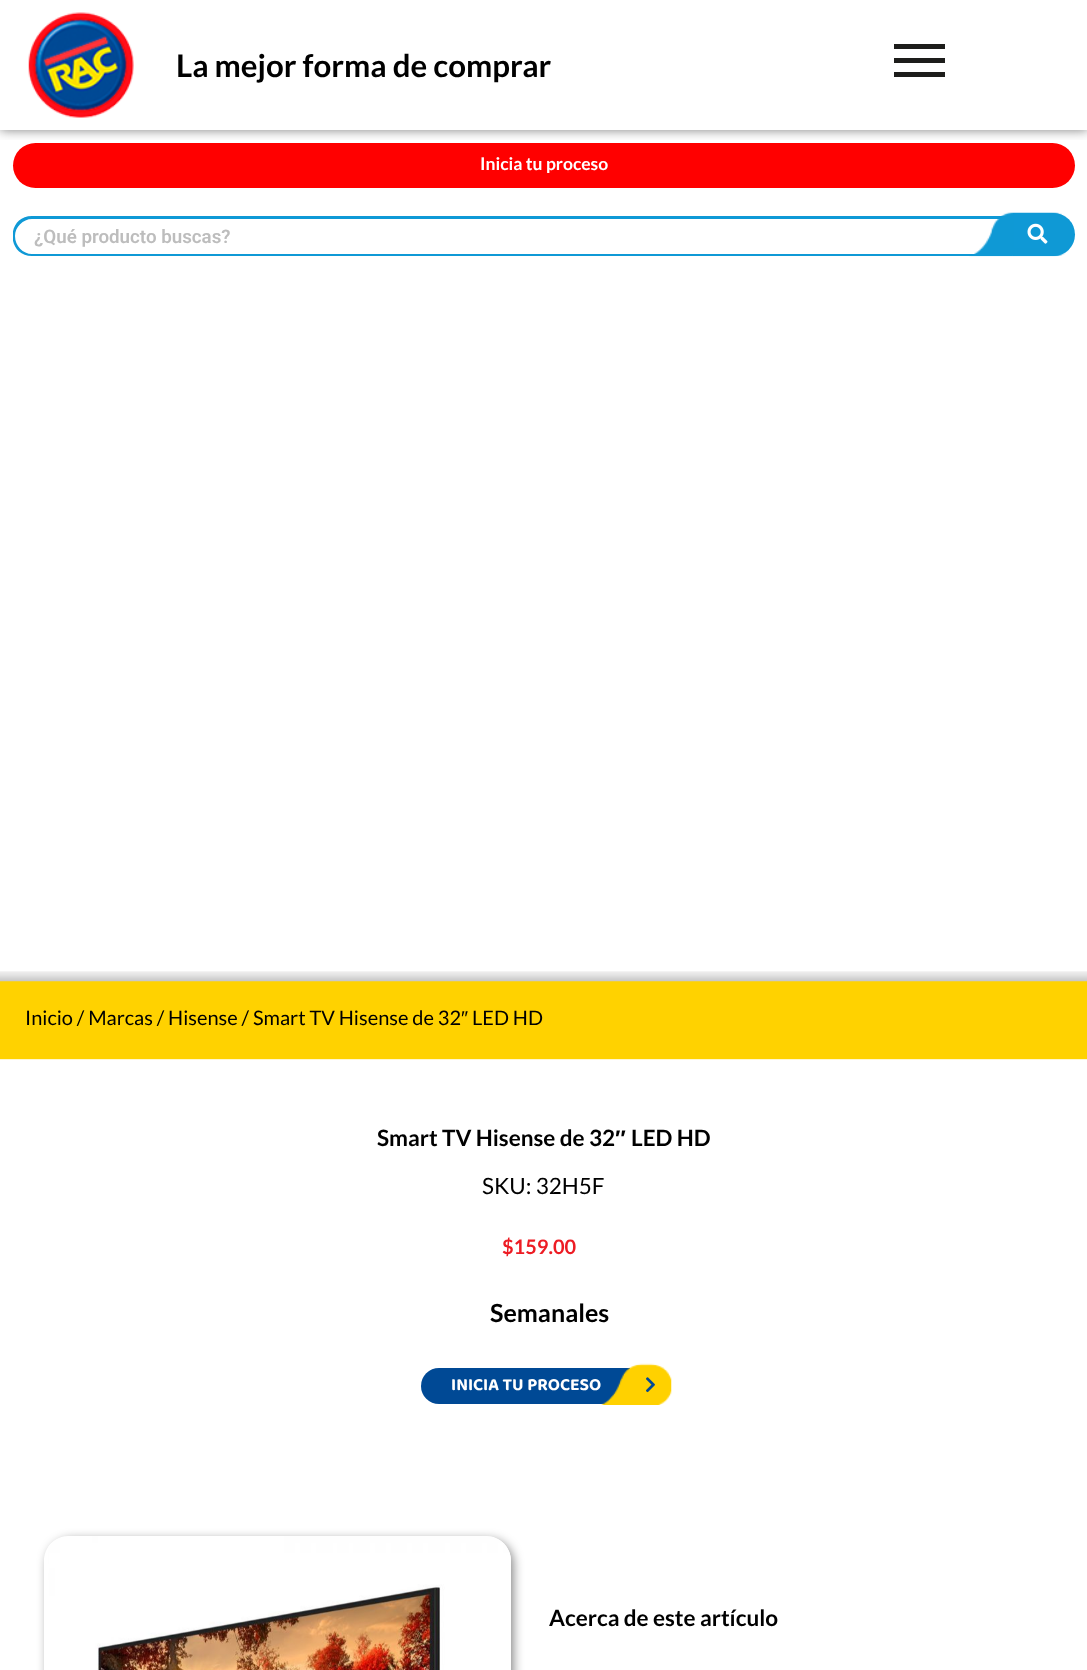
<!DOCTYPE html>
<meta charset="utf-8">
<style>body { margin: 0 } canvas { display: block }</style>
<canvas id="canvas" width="1087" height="1670"></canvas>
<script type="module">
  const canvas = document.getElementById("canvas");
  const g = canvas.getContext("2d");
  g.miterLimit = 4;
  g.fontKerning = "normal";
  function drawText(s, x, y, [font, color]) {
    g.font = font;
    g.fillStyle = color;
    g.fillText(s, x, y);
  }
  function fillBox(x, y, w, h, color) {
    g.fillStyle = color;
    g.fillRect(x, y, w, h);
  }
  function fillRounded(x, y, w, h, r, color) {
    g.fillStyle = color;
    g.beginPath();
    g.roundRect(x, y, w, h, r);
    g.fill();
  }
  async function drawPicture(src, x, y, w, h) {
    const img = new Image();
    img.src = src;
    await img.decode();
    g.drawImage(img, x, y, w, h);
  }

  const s1 = ["bold 31.25px Lato", "#000000"];
  const s2 = ["bold 17.5px Lato", "#FFFFFF"];
  const s3 = ["600 18.75px Roboto", "#BDBDBD"];
  const s4 = ["20px Lato", "#000000"];
  const s5 = ["20px Liberation Sans", "#000000"];
  const s6 = ["bold 22.5px Lato", "#000000"];
  const s7 = ["bold 22.5px Liberation Sans", "#000000"];
  const s8 = ["22.5px Lato", "#000000"];
  const s9 = ["bold 20px Lato", "#ED1C24"];
  const s10 = ["bold 25px Lato", "#000000"];
  const s11 = ["bold 17.5px 'Baloo Bhaina 2'", "#FFFFFF"];

  fillBox(0, 0, 1087, 1670, "#FFFFFF");
  fillRounded(13, 143, 1062, 45, 22.5, "#FF0000");
  g.save();
  g.beginPath();
  g.rect(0, 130, 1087, 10);
  g.clip();
  g.fillStyle = "rgba(0, 0, 0, 0.5)";
  g.filter = "blur(6px)";
  g.beginPath();
  g.rect(0, 0, 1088, 130);
  g.fill();
  g.filter = "none";
  g.restore();
  await drawPicture("pic1.png", 28, 12, 106, 106);
  drawText("La mejor forma de comprar", 176, 77, s1);
  fillBox(894, 58, 51, 5, "#1D1D1B");
  fillBox(894, 44, 51, 5, "#1D1D1B");
  fillBox(894, 72, 51, 5, "#1D1D1B");
  drawText("Inicia tu proceso", 480, 170, s2);
  g.save();
  g.beginPath();
  g.rect(13, 213, 1062, 43);
  g.clip();
  g.fillStyle = "#0F99D6";
  g.beginPath();
  g.moveTo(32, 216);
  g.lineTo(1012, 216);
  g.lineTo(1012, 256);
  g.lineTo(32, 256);
  g.bezierCurveTo(6, 256, 6, 216, 32, 216);
  g.closePath();
  g.moveTo(32, 219);
  g.lineTo(1012, 219);
  g.lineTo(1012, 254);
  g.lineTo(32, 254);
  g.bezierCurveTo(23, 254, 15, 246, 15, 236);
  g.bezierCurveTo(15, 227, 23, 219, 32, 219);
  g.closePath();
  g.fill("evenodd");
  g.restore();
  drawText("¿Qué producto buscas?", 34, 243, s3);
  g.fillStyle = "#0F99D6";
  g.beginPath();
  g.roundRect(1013, 213, 62, 43, [0, 21.5, 21.5, 0]);
  g.fill();
  await drawPicture("pic2.png", 969, 212, 105, 45);
  await drawPicture("pic3.png", 1027, 223, 21, 21);
  await drawPicture("pic4.png", 0, 971, 1087, 89);
  drawText("Inicio / Marcas / Hisense / Smart TV Hisense de 32", 25, 1025, s4);
  drawText("″", 461, 1025, s5);
  drawText("LED HD", 472, 1025, s4);
  drawText("Smart TV Hisense de 32", 377, 1146, s6);
  drawText("″", 615, 1146, s7);
  drawText("LED HD", 631, 1146, s6);
  drawText("SKU: 32H5F", 482, 1194, s8);
  drawText("$159.00", 502, 1254, s9);
  drawText("Semanales", 490, 1322, s10);
  g.fillStyle = "#004995";
  g.beginPath();
  g.roundRect(421, 1368, 209, 36, [18, 0, 0, 18]);
  g.fill();
  drawText("INICIA TU PROCESO", 451, 1390, s11);
  await drawPicture("pic5.png", 601, 1363, 71, 42);
  await drawPicture("pic6.png", 646, 1377, 9, 16);
  g.save();
  g.beginPath();
  g.moveTo(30, 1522);
  g.lineTo(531, 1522);
  g.lineTo(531, 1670);
  g.lineTo(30, 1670);
  g.closePath();
  g.moveTo(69, 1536);
  g.lineTo(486, 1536);
  g.bezierCurveTo(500, 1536, 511, 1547, 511, 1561);
  g.lineTo(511, 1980);
  g.bezierCurveTo(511, 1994, 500, 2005, 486, 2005);
  g.lineTo(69, 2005);
  g.bezierCurveTo(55, 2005, 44, 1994, 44, 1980);
  g.lineTo(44, 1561);
  g.bezierCurveTo(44, 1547, 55, 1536, 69, 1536);
  g.closePath();
  g.clip("evenodd");
  g.fillStyle = "rgba(0, 0, 0, 0.5)";
  g.filter = "blur(5.5px)";
  g.beginPath();
  g.roundRect(48, 1540, 465, 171, 24);
  g.fill();
  g.filter = "none";
  g.restore();
  await drawPicture("pic7.png", 48, 1536, 463, 134);
  drawText("Acerca de este artículo", 549, 1626, s6);
</script>
